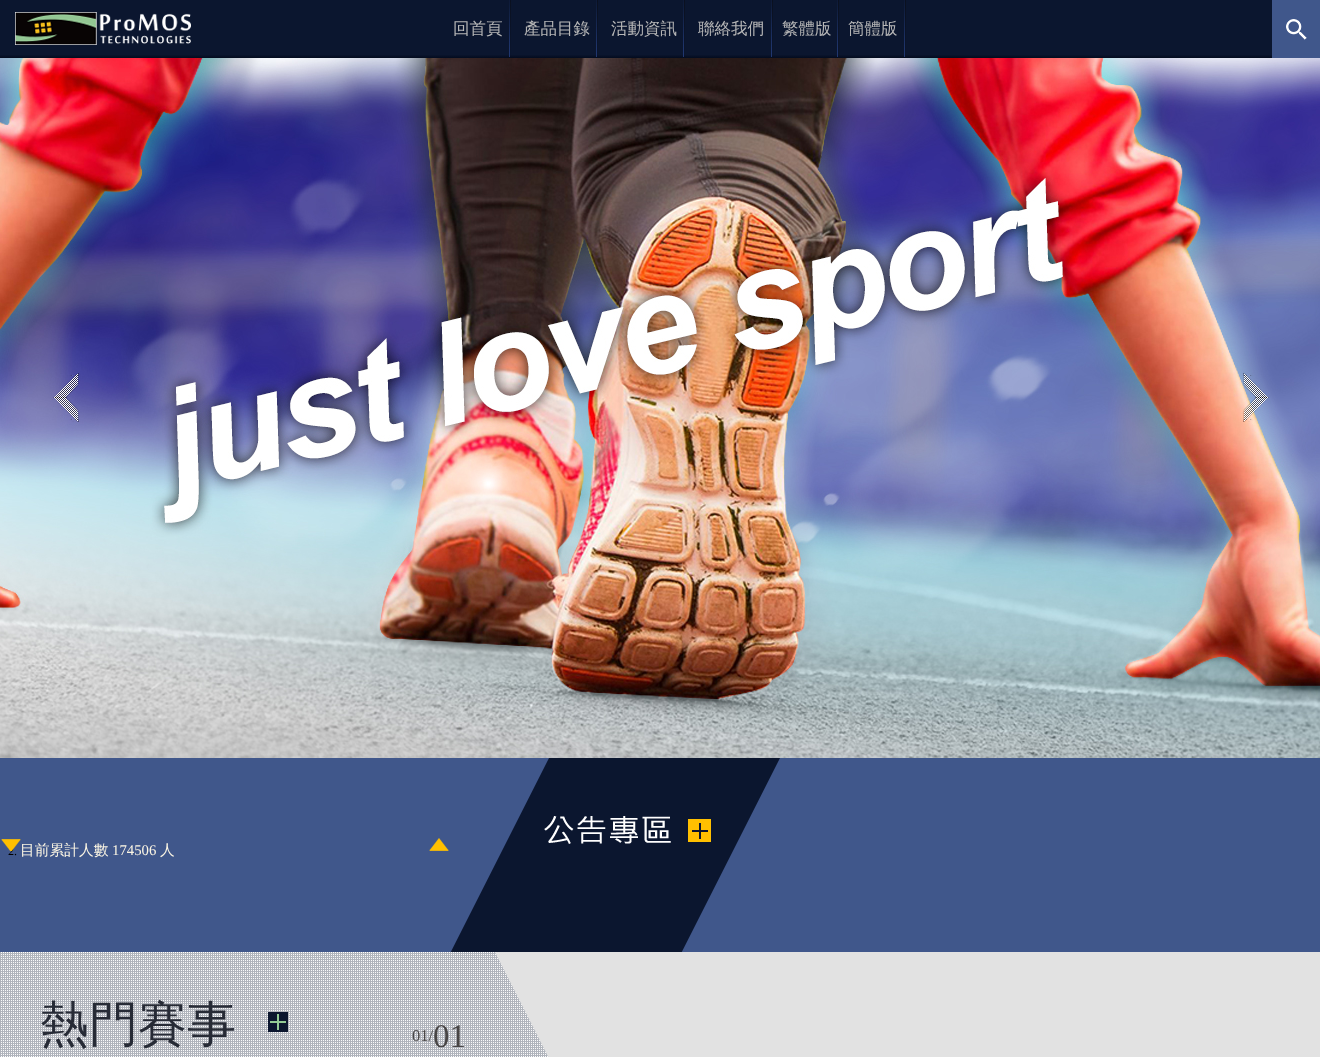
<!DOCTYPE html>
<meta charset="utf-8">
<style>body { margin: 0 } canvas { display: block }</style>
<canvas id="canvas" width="1320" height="1057"></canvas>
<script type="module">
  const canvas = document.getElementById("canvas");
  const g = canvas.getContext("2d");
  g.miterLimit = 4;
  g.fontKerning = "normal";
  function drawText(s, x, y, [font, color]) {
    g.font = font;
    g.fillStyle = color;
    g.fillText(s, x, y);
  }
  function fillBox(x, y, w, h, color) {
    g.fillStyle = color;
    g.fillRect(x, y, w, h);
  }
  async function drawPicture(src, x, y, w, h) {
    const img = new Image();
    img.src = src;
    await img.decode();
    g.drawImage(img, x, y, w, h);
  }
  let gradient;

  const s1 = ["500 16.5px WenQuanYi Zen Hei", "#B7B7B7"];
  const s2 = ["12px Liberation Serif", "#000000"];
  const s3 = ["500 14.75px WenQuanYi Zen Hei", "#FCF6E4"];
  const s4 = ["14.75px Liberation Serif", "#FCF6E4"];
  const s5 = ["500 49px WenQuanYi Zen Hei", "#272B36"];
  const s6 = ["16.5px Liberation Serif", "#484545"];
  const s7 = ["33px Liberation Serif", "#484545"];

  fillBox(0, 0, 1320, 1057, "#40578B");
  gradient = g.createLinearGradient(660, 0, 660, 58);
  gradient.addColorStop(0.94, "#0B162F");
  gradient.addColorStop(1, "#030B1E");
  g.fillStyle = gradient;
  g.fillRect(0, 0, 1272, 58);
  await drawPicture("pic1.png", 15, 12, 176, 33);
  await drawPicture("pic2.png", 509, 0, 2, 57);
  drawText("回首頁", 453, 34, s1);
  await drawPicture("pic2.png", 596, 0, 2, 57);
  drawText("產品目錄", 524, 34, s1);
  await drawPicture("pic2.png", 683, 0, 2, 57);
  drawText("活動資訊", 611, 34, s1);
  await drawPicture("pic2.png", 771, 0, 2, 57);
  drawText("聯絡我們", 698, 34, s1);
  await drawPicture("pic2.png", 837, 0, 2, 57);
  drawText("繁體版", 782, 34, s1);
  await drawPicture("pic2.png", 904, 0, 2, 57);
  drawText("簡體版", 848, 34, s1);
  await drawPicture("pic3.png", 1286, 19, 21, 21);
  await drawPicture("pic4.png", 0, 58, 1320, 700);
  await drawPicture("pic5.png", 53, 373, 26, 49);
  await drawPicture("pic6.png", 1243, 373, 26, 49);
  drawText("2.", 8, 855, s2);
  await drawPicture("pic7.png", 1, 839, 20, 12);
  await drawPicture("pic8.png", 429, 838, 20, 13);
  drawText("目前累計人數", 20, 855, s3);
  drawText("174506", 112, 855, s4);
  drawText("人", 160, 855, s3);
  await drawPicture("pic9.png", 450, 758, 330, 194);
  fillBox(495, 952, 825, 105, "#E2E2E2");
  await drawPicture("pic10.png", 0, 952, 549, 105);
  drawText("熱門賽事", 40, 1041, s5);
  fillBox(268, 1012, 20, 20, "#0B162F");
  await drawPicture("pic11.png", 270, 1014, 16, 16);
  drawText("01/", 412, 1041, s6);
  drawText("01", 433, 1047, s7);
</script>
